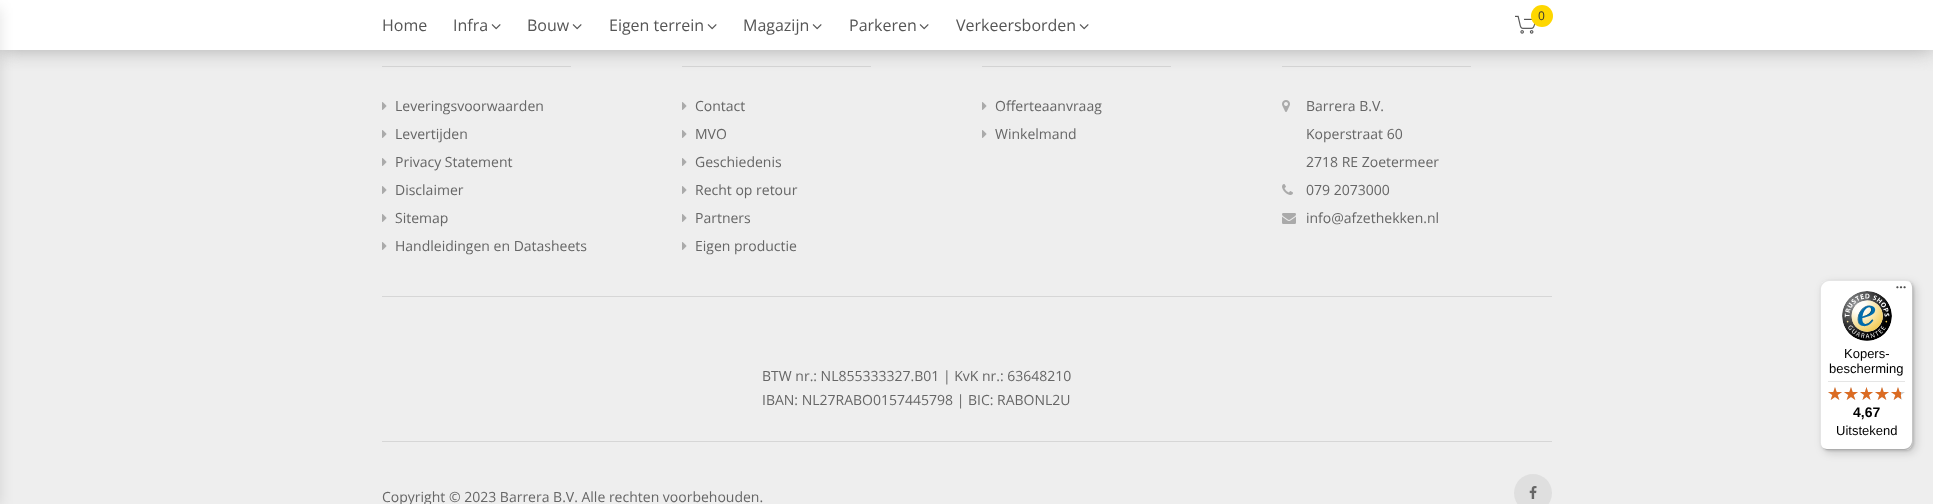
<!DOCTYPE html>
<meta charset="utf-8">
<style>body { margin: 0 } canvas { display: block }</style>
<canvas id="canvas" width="1933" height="504"></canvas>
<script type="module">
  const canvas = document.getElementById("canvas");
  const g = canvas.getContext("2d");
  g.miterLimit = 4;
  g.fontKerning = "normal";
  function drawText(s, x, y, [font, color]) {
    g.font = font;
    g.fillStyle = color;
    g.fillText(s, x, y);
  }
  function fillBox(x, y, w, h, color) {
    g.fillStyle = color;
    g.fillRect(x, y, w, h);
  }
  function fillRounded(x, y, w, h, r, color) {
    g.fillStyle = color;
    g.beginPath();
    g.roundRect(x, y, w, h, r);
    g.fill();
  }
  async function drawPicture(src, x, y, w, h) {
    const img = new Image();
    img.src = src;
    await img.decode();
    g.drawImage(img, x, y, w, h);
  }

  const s1 = ["12px Open Sans", "#333333"];
  const s2 = ["16px Open Sans", "#555555"];
  const s3 = ["14px Open Sans", "#666666"];
  const s4 = ["13px Liberation Sans", "#000000"];
  const s5 = ["bold 14px Liberation Sans", "#000000"];

  fillBox(0, 0, 1933, 504, "#EEEEEE");
  fillBox(382, 66, 189, 1, "#D6D6D6");
  fillBox(682, 66, 189, 1, "#D6D6D6");
  fillBox(982, 66, 189, 1, "#D6D6D6");
  fillBox(1282, 66, 189, 1, "#D6D6D6");
  g.save();
  g.beginPath();
  g.rect(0, 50, 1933, 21);
  g.clip();
  g.fillStyle = "#AAAAAA";
  g.filter = "blur(10px)";
  g.beginPath();
  g.rect(0, 0, 1933, 50);
  g.fill();
  g.filter = "none";
  g.restore();
  fillBox(0, 0, 1933, 50, "rgba(255, 255, 255, 0.95)");
  g.fillStyle = "rgba(0, 0, 0, 0.11)";
  g.filter = "blur(7px)";
  g.beginPath();
  g.rect(-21, 8, 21, 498);
  g.fill();
  g.filter = "none";
  await drawPicture("pic1.png", 1515, 15, 21, 19);
  g.fillStyle = "#FED700";
  g.beginPath();
  g.arc(1542, 16, 11, 0, Math.PI * 2);
  g.fill();
  drawText("0", 1538, 20, s1);
  drawText("Home", 382, 31, s2);
  drawText("Infra", 453, 31, s2);
  await drawPicture("pic2.png", 491, 24, 10, 6);
  drawText("Bouw", 527, 31, s2);
  await drawPicture("pic2.png", 572, 24, 10, 6);
  drawText("Eigen terrein", 609, 31, s2);
  await drawPicture("pic2.png", 707, 24, 10, 6);
  drawText("Magazijn", 743, 31, s2);
  await drawPicture("pic2.png", 812, 24, 10, 6);
  drawText("Parkeren", 849, 31, s2);
  await drawPicture("pic2.png", 919, 24, 10, 6);
  drawText("Verkeersborden", 956, 31, s2);
  await drawPicture("pic2.png", 1079, 24, 10, 6);
  await drawPicture("pic3.png", 382, 102, 5, 8);
  drawText("Leveringsvoorwaarden", 395, 111, s3);
  await drawPicture("pic3.png", 382, 130, 5, 8);
  drawText("Levertijden", 395, 139, s3);
  await drawPicture("pic3.png", 382, 158, 5, 8);
  drawText("Privacy Statement", 395, 167, s3);
  await drawPicture("pic3.png", 382, 186, 5, 8);
  drawText("Disclaimer", 395, 195, s3);
  await drawPicture("pic3.png", 382, 214, 5, 8);
  drawText("Sitemap", 395, 223, s3);
  await drawPicture("pic3.png", 382, 242, 5, 8);
  drawText("Handleidingen en Datasheets", 395, 251, s3);
  await drawPicture("pic3.png", 682, 102, 5, 8);
  drawText("Contact", 695, 111, s3);
  await drawPicture("pic3.png", 682, 130, 5, 8);
  drawText("MVO", 695, 139, s3);
  await drawPicture("pic3.png", 682, 158, 5, 8);
  drawText("Geschiedenis", 695, 167, s3);
  await drawPicture("pic3.png", 682, 186, 5, 8);
  drawText("Recht op retour", 695, 195, s3);
  await drawPicture("pic3.png", 682, 214, 5, 8);
  drawText("Partners", 695, 223, s3);
  await drawPicture("pic3.png", 682, 242, 5, 8);
  drawText("Eigen productie", 695, 251, s3);
  await drawPicture("pic3.png", 982, 102, 5, 8);
  drawText("Offerteaanvraag", 995, 111, s3);
  await drawPicture("pic3.png", 982, 130, 5, 8);
  drawText("Winkelmand", 995, 139, s3);
  await drawPicture("pic4.png", 1282, 100, 8, 12);
  drawText("Barrera B.V.", 1306, 111, s3);
  drawText("Koperstraat 60", 1306, 139, s3);
  drawText("2718 RE Zoetermeer", 1306, 167, s3);
  await drawPicture("pic5.png", 1282, 184, 11, 11);
  drawText("079 2073000", 1306, 195, s3);
  await drawPicture("pic6.png", 1282, 213, 14, 11);
  drawText("info@afzethekken.nl", 1306, 223, s3);
  fillBox(382, 296, 1170, 1, "#D6D6D6");
  drawText("BTW nr.: NL855333327.B01 | KvK nr.: 63648210", 762, 381, s3);
  drawText("IBAN: NL27RABO0157445798 | BIC: RABONL2U", 762, 405, s3);
  fillBox(382, 441, 1170, 1, "#D6D6D6");
  drawText("Copyright © 2023 Barrera B.V. Alle rechten voorbehouden.", 382, 502, s3);
  g.fillStyle = "#DFDFDF";
  g.beginPath();
  g.arc(1533, 493, 19, 0, Math.PI * 2);
  g.fill();
  await drawPicture("pic7.png", 1529, 486, 8, 13);
  g.fillStyle = "rgba(0, 0, 0, 0.15)";
  g.filter = "blur(4px)";
  g.beginPath();
  g.roundRect(1823, 283, 93, 170, 8);
  g.fill();
  g.filter = "none";
  g.filter = "blur(1px)";
  g.beginPath();
  g.roundRect(1821, 281, 93, 170, 8);
  g.fill();
  g.filter = "none";
  fillRounded(1820, 280, 93, 170, 8, "#FFFFFF");
  g.fillStyle = "rgba(0, 0, 0, 0.1)";
  g.beginPath();
  g.moveTo(1829, 281);
  g.lineTo(1906, 281);
  g.bezierCurveTo(1908, 281, 1910, 282, 1912, 284);
  g.bezierCurveTo(1910, 282, 1908, 280, 1905, 280);
  g.lineTo(1828, 280);
  g.bezierCurveTo(1824, 280, 1820, 284, 1820, 288);
  g.lineTo(1820, 442);
  g.bezierCurveTo(1820, 445, 1822, 447, 1824, 449);
  g.bezierCurveTo(1822, 447, 1821, 445, 1821, 443);
  g.lineTo(1821, 289);
  g.bezierCurveTo(1821, 285, 1825, 281, 1829, 281);
  g.closePath();
  g.fill();
  g.fillStyle = "rgba(0, 0, 0, 0.2)";
  g.beginPath();
  g.moveTo(1821, 446);
  g.bezierCurveTo(1823, 448, 1825, 450, 1828, 450);
  g.lineTo(1905, 450);
  g.bezierCurveTo(1909, 450, 1913, 446, 1913, 442);
  g.lineTo(1913, 288);
  g.bezierCurveTo(1913, 285, 1911, 283, 1909, 281);
  g.bezierCurveTo(1911, 283, 1912, 285, 1912, 287);
  g.lineTo(1912, 441);
  g.bezierCurveTo(1912, 445, 1908, 449, 1904, 449);
  g.lineTo(1827, 449);
  g.bezierCurveTo(1825, 449, 1823, 448, 1821, 446);
  g.closePath();
  g.fill();
  g.fillStyle = "rgba(50, 50, 50, 0.2)";
  g.beginPath();
  g.moveTo(1822, 447);
  g.bezierCurveTo(1823, 449, 1826, 450, 1828, 450);
  g.lineTo(1905, 450);
  g.bezierCurveTo(1909, 450, 1913, 446, 1913, 442);
  g.lineTo(1913, 288);
  g.bezierCurveTo(1913, 286, 1912, 283, 1910, 282);
  g.bezierCurveTo(1911, 283, 1912, 285, 1912, 287);
  g.lineTo(1912, 441);
  g.bezierCurveTo(1912, 446, 1909, 449, 1904, 449);
  g.lineTo(1827, 449);
  g.bezierCurveTo(1825, 449, 1823, 448, 1822, 447);
  g.closePath();
  g.fill();
  g.fillStyle = "rgba(255, 255, 255, 0.3)";
  g.beginPath();
  g.moveTo(1904, 450);
  g.lineTo(1905, 450);
  g.bezierCurveTo(1909, 450, 1913, 446, 1913, 442);
  g.lineTo(1913, 288);
  g.bezierCurveTo(1913, 284, 1909, 280, 1905, 280);
  g.lineTo(1904, 280);
  g.bezierCurveTo(1909, 280, 1912, 283, 1912, 288);
  g.lineTo(1912, 442);
  g.bezierCurveTo(1912, 446, 1909, 450, 1904, 450);
  g.closePath();
  g.fill();
  await drawPicture("pic8.png", 1896, 286, 10, 3);
  await drawPicture("pic9.png", 1842, 291, 50, 50);
  drawText("Kopers-", 1844, 358, s4);
  drawText("bescherming", 1829, 373, s4);
  fillBox(1828, 381, 77, 1, "#E5E5E5");
  await drawPicture("pic10.png", 1828, 387, 14, 13);
  await drawPicture("pic10.png", 1844, 387, 14, 13);
  await drawPicture("pic11.png", 1860, 387, 13, 13);
  await drawPicture("pic10.png", 1875, 387, 14, 13);
  await drawPicture("pic10.png", 1891, 387, 14, 13);
  await drawPicture("pic12.png", 1828, 387, 14, 13);
  await drawPicture("pic12.png", 1844, 387, 14, 13);
  await drawPicture("pic13.png", 1860, 387, 13, 13);
  await drawPicture("pic12.png", 1875, 387, 14, 13);
  await drawPicture("pic14.png", 1891, 387, 10, 13);
  drawText("4,67", 1853, 417, s5);
  drawText("Uitstekend", 1836, 435, s4);
</script>
